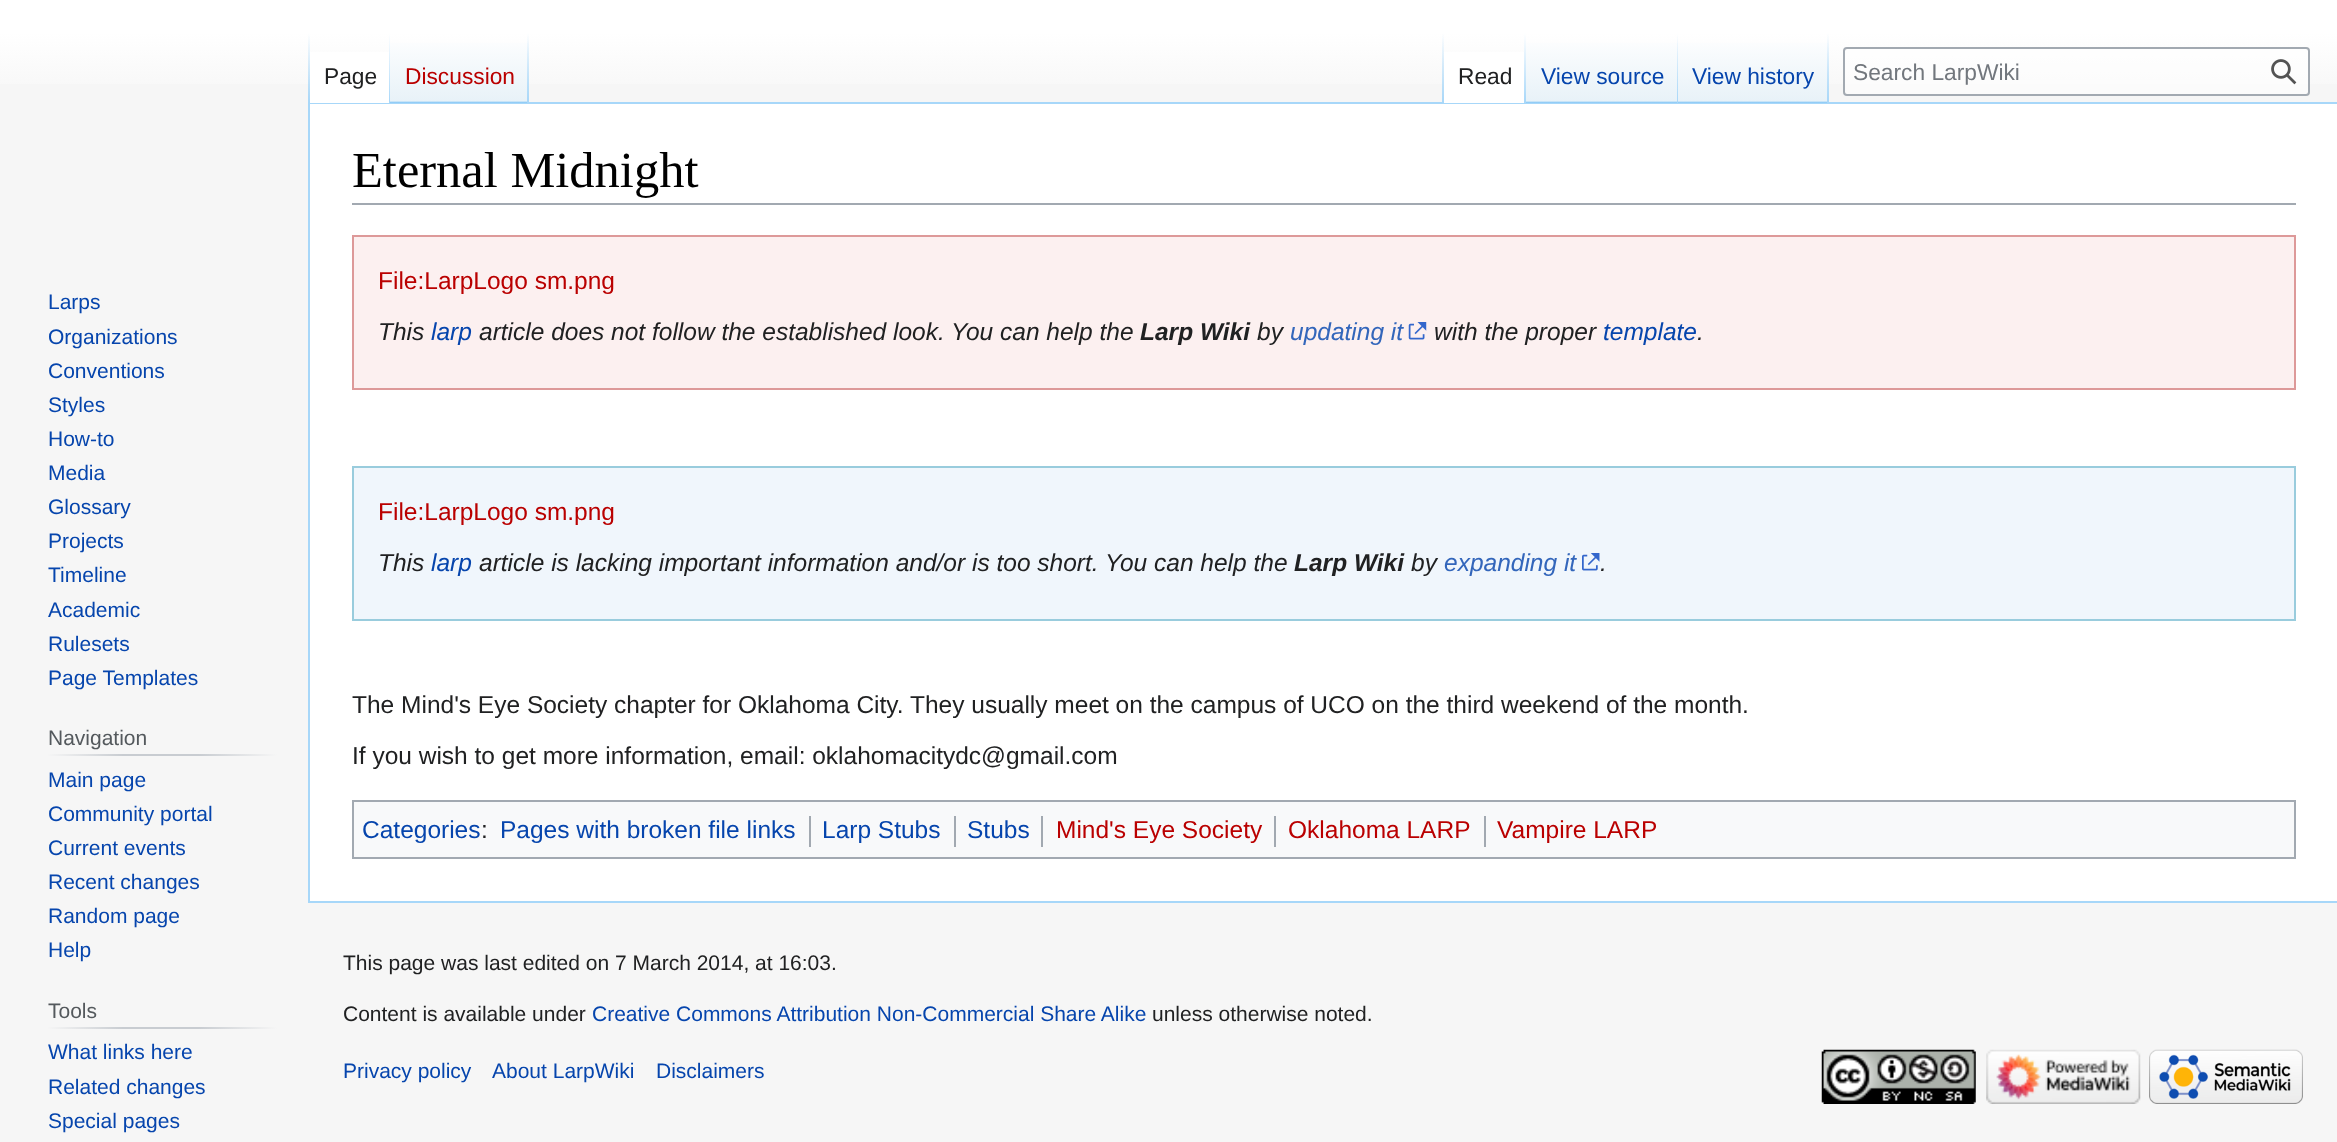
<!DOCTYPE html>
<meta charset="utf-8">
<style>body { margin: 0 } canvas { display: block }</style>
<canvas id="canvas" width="2337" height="1142"></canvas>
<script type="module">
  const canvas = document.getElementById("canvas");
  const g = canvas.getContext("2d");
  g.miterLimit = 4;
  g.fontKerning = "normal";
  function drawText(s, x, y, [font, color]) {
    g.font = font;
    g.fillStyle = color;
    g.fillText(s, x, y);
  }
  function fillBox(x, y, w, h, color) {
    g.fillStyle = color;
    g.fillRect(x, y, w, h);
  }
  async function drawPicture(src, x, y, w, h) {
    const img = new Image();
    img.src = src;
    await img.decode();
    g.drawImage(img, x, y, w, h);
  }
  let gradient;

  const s1 = ["22.75px Liberation Sans", "#202122"];
  const s2 = ["22.75px Liberation Sans", "#BA0000"];
  const s3 = ["22.75px Liberation Sans", "#0645AD"];
  const s4 = ["22.75px Liberation Sans", "#72777D"];
  const s5 = ["21px Liberation Sans", "#0645AD"];
  const s6 = ["21px Liberation Sans", "#54595D"];
  const s7 = ["50.5px Liberation Serif", "#000000"];
  const s8 = ["24.5px Liberation Sans", "#BA0000"];
  const s9 = ["italic 24.5px Liberation Sans", "#202122"];
  const s10 = ["italic 24.5px Liberation Sans", "#0645AD"];
  const s11 = ["italic bold 24.5px Liberation Sans", "#202122"];
  const s12 = ["italic 24.5px Liberation Sans", "#3366BB"];
  const s13 = ["24.5px Liberation Sans", "#202122"];
  const s14 = ["24.5px Liberation Sans", "#0645AD"];
  const s15 = ["21px Liberation Sans", "#202122"];

  fillBox(0, 0, 2337, 1142, "#F6F6F6");
  gradient = g.createLinearGradient(1169, -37, 1169, 103);
  gradient.addColorStop(0.5, "#FFFFFF");
  gradient.addColorStop(1, "#F6F6F6");
  g.fillStyle = gradient;
  g.fillRect(0, 0, 2337, 84);
  fillBox(308, 102, 2029, 2, "#A7D7F9");
  fillBox(308, 901, 2029, 2, "#A7D7F9");
  fillBox(308, 102, 2, 801, "#A7D7F9");
  gradient = g.createLinearGradient(309, 33, 309, 103);
  gradient.addColorStop(0, "rgba(167, 215, 249, 0)");
  gradient.addColorStop(1, "#A7D7F9");
  g.fillStyle = gradient;
  g.fillRect(308, 33, 2, 70);
  fillBox(310, 52, 79, 51, "#FFFFFF");
  gradient = g.createLinearGradient(389, 33, 389, 103);
  gradient.addColorStop(0, "#FFFFFF");
  gradient.addColorStop(1, "#A7D7F9");
  g.fillStyle = gradient;
  g.fillRect(389, 33, 1, 70);
  drawText("Page", 324, 84, s1);
  gradient = g.createLinearGradient(459, 103, 459, 33);
  gradient.addColorStop(0, "#77C1F6");
  gradient.addColorStop(0.03, "#E8F2F8");
  gradient.addColorStop(1, "#FFFFFF");
  g.fillStyle = gradient;
  g.fillRect(390, 43, 139, 60);
  gradient = g.createLinearGradient(528, 33, 528, 103);
  gradient.addColorStop(0, "rgba(167, 215, 249, 0)");
  gradient.addColorStop(1, "#A7D7F9");
  g.fillStyle = gradient;
  g.fillRect(527, 33, 2, 70);
  drawText("Discussion", 405, 84, s2);
  gradient = g.createLinearGradient(1443, 33, 1443, 103);
  gradient.addColorStop(0, "rgba(167, 215, 249, 0)");
  gradient.addColorStop(1, "#A7D7F9");
  g.fillStyle = gradient;
  g.fillRect(1442, 33, 2, 70);
  fillBox(1444, 52, 80, 51, "#FFFFFF");
  gradient = g.createLinearGradient(1525, 33, 1525, 103);
  gradient.addColorStop(0, "#FFFFFF");
  gradient.addColorStop(1, "#A7D7F9");
  g.fillStyle = gradient;
  g.fillRect(1524, 33, 2, 70);
  drawText("Read", 1458, 84, s1);
  gradient = g.createLinearGradient(1602, 103, 1602, 33);
  gradient.addColorStop(0, "#77C1F6");
  gradient.addColorStop(0.03, "#E8F2F8");
  gradient.addColorStop(1, "#FFFFFF");
  g.fillStyle = gradient;
  g.fillRect(1526, 43, 152, 60);
  gradient = g.createLinearGradient(1677, 33, 1677, 103);
  gradient.addColorStop(0, "rgba(167, 215, 249, 0)");
  gradient.addColorStop(1, "#A7D7F9");
  g.fillStyle = gradient;
  g.fillRect(1677, 33, 1, 70);
  drawText("View source", 1541, 84, s3);
  gradient = g.createLinearGradient(1754, 103, 1754, 33);
  gradient.addColorStop(0, "#77C1F6");
  gradient.addColorStop(0.03, "#E8F2F8");
  gradient.addColorStop(1, "#FFFFFF");
  g.fillStyle = gradient;
  g.fillRect(1678, 43, 151, 60);
  gradient = g.createLinearGradient(1828, 33, 1828, 103);
  gradient.addColorStop(0, "rgba(167, 215, 249, 0)");
  gradient.addColorStop(1, "#A7D7F9");
  g.fillStyle = gradient;
  g.fillRect(1827, 33, 2, 70);
  drawText("View history", 1692, 84, s3);
  g.fillStyle = "rgba(255, 255, 255, 0.5)";
  g.beginPath();
  g.roundRect(1844, 48, 465, 47, 3);
  g.fill();
  g.strokeStyle = "#A2A9B1";
  g.lineWidth = 2;
  g.stroke();
  drawText("Search LarpWiki", 1853, 80, s4);
  await drawPicture("pic1.png", 2271, 59, 26, 26);
  drawText("Larps", 48, 309, s5);
  drawText("Organizations", 48, 344, s5);
  drawText("Conventions", 48, 378, s5);
  drawText("Styles", 48, 412, s5);
  drawText("How-to", 48, 446, s5);
  drawText("Media", 48, 480, s5);
  drawText("Glossary", 48, 514, s5);
  drawText("Projects", 48, 548, s5);
  drawText("Timeline", 48, 582, s5);
  drawText("Academic", 48, 617, s5);
  drawText("Rulesets", 48, 651, s5);
  drawText("Page Templates", 48, 685, s5);
  gradient = g.createLinearGradient(47, 755, 277, 755);
  gradient.addColorStop(0, "#F6F6F6");
  gradient.addColorStop(0.33, "#C8CCD1");
  gradient.addColorStop(0.66, "#C8CCD1");
  gradient.addColorStop(1, "#F6F6F6");
  g.fillStyle = gradient;
  g.fillRect(47, 754, 230, 2);
  drawText("Navigation", 48, 745, s6);
  drawText("Main page", 48, 787, s5);
  drawText("Community portal", 48, 821, s5);
  drawText("Current events", 48, 855, s5);
  drawText("Recent changes", 48, 889, s5);
  drawText("Random page", 48, 923, s5);
  drawText("Help", 48, 957, s5);
  gradient = g.createLinearGradient(47, 1028, 277, 1028);
  gradient.addColorStop(0, "#F6F6F6");
  gradient.addColorStop(0.33, "#C8CCD1");
  gradient.addColorStop(0.66, "#C8CCD1");
  gradient.addColorStop(1, "#F6F6F6");
  g.fillStyle = gradient;
  g.fillRect(47, 1027, 230, 2);
  drawText("Tools", 48, 1018, s6);
  drawText("What links here", 48, 1059, s5);
  drawText("Related changes", 48, 1094, s5);
  drawText("Special pages", 48, 1128, s5);
  fillBox(310, 104, 2027, 797, "#FFFFFF");
  fillBox(352, 203, 1944, 2, "#A2A9B1");
  drawText("Eternal Midnight", 352, 187, s7);
  g.fillStyle = "#FCF0F0";
  g.beginPath();
  g.rect(353, 236, 1942, 153);
  g.fill();
  g.strokeStyle = "#DD9999";
  g.stroke();
  drawText("File:LarpLogo sm.png", 378, 289, s8);
  drawText("This", 378, 340, s9);
  drawText("larp", 431, 340, s10);
  drawText("article does not follow the established look.", 479, 340, s9);
  drawText("You can help the", 951, 340, s9);
  drawText("Larp Wiki", 1140, 340, s11);
  drawText("by", 1257, 340, s9);
  drawText("updating it", 1290, 340, s12);
  await drawPicture("pic2.png", 1408, 322, 19, 18);
  drawText("with the proper", 1434, 340, s9);
  drawText("template", 1603, 340, s10);
  drawText(".", 1697, 340, s9);
  g.fillStyle = "#F0F6FC";
  g.beginPath();
  g.rect(353, 467, 1942, 153);
  g.fill();
  g.strokeStyle = "#99CCDD";
  g.stroke();
  drawText("File:LarpLogo sm.png", 378, 520, s8);
  drawText("This", 378, 571, s9);
  drawText("larp", 431, 571, s10);
  drawText("article is lacking important information and/or is too short.", 479, 571, s9);
  drawText("You can help the", 1105, 571, s9);
  drawText("Larp Wiki", 1294, 571, s11);
  drawText("by", 1411, 571, s9);
  drawText("expanding it", 1444, 571, s12);
  await drawPicture("pic3.png", 1582, 553, 18, 18);
  drawText(".", 1600, 571, s9);
  drawText("The Mind's Eye Society chapter for Oklahoma City.", 352, 713, s13);
  drawText("They usually meet on the campus of UCO on the third weekend of the month.", 910, 713, s13);
  drawText("If you wish to get more information, email: oklahomacitydc@gmail.com", 352, 764, s13);
  g.fillStyle = "#F8F9FA";
  g.beginPath();
  g.rect(353, 801, 1942, 57);
  g.fill();
  g.strokeStyle = "#A2A9B1";
  g.stroke();
  drawText("Categories", 362, 838, s14);
  drawText(":", 481, 838, s13);
  drawText("Pages with broken file links", 500, 838, s14);
  fillBox(809, 816, 2, 31, "#A2A9B1");
  drawText("Larp Stubs", 822, 838, s14);
  fillBox(954, 816, 2, 31, "#A2A9B1");
  drawText("Stubs", 967, 838, s14);
  fillBox(1041, 816, 2, 31, "#A2A9B1");
  drawText("Mind's Eye Society", 1056, 838, s8);
  fillBox(1274, 816, 2, 31, "#A2A9B1");
  drawText("Oklahoma LARP", 1288, 838, s8);
  fillBox(1484, 816, 2, 31, "#A2A9B1");
  drawText("Vampire LARP", 1497, 838, s8);
  drawText("This page was last edited on 7 March 2014, at 16:03.", 343, 970, s15);
  drawText("Content is available under", 343, 1021, s15);
  drawText("Creative Commons Attribution Non-Commercial Share Alike", 592, 1021, s5);
  drawText("unless otherwise noted.", 1152, 1021, s15);
  drawText("Privacy policy", 343, 1078, s5);
  drawText("About LarpWiki", 492, 1078, s5);
  drawText("Disclaimers", 656, 1078, s5);
  await drawPicture("pic4.png", 1821, 1049, 155, 55);
  await drawPicture("pic5.png", 1986, 1049, 155, 55);
  await drawPicture("pic6.png", 2149, 1049, 154, 55);
</script>
